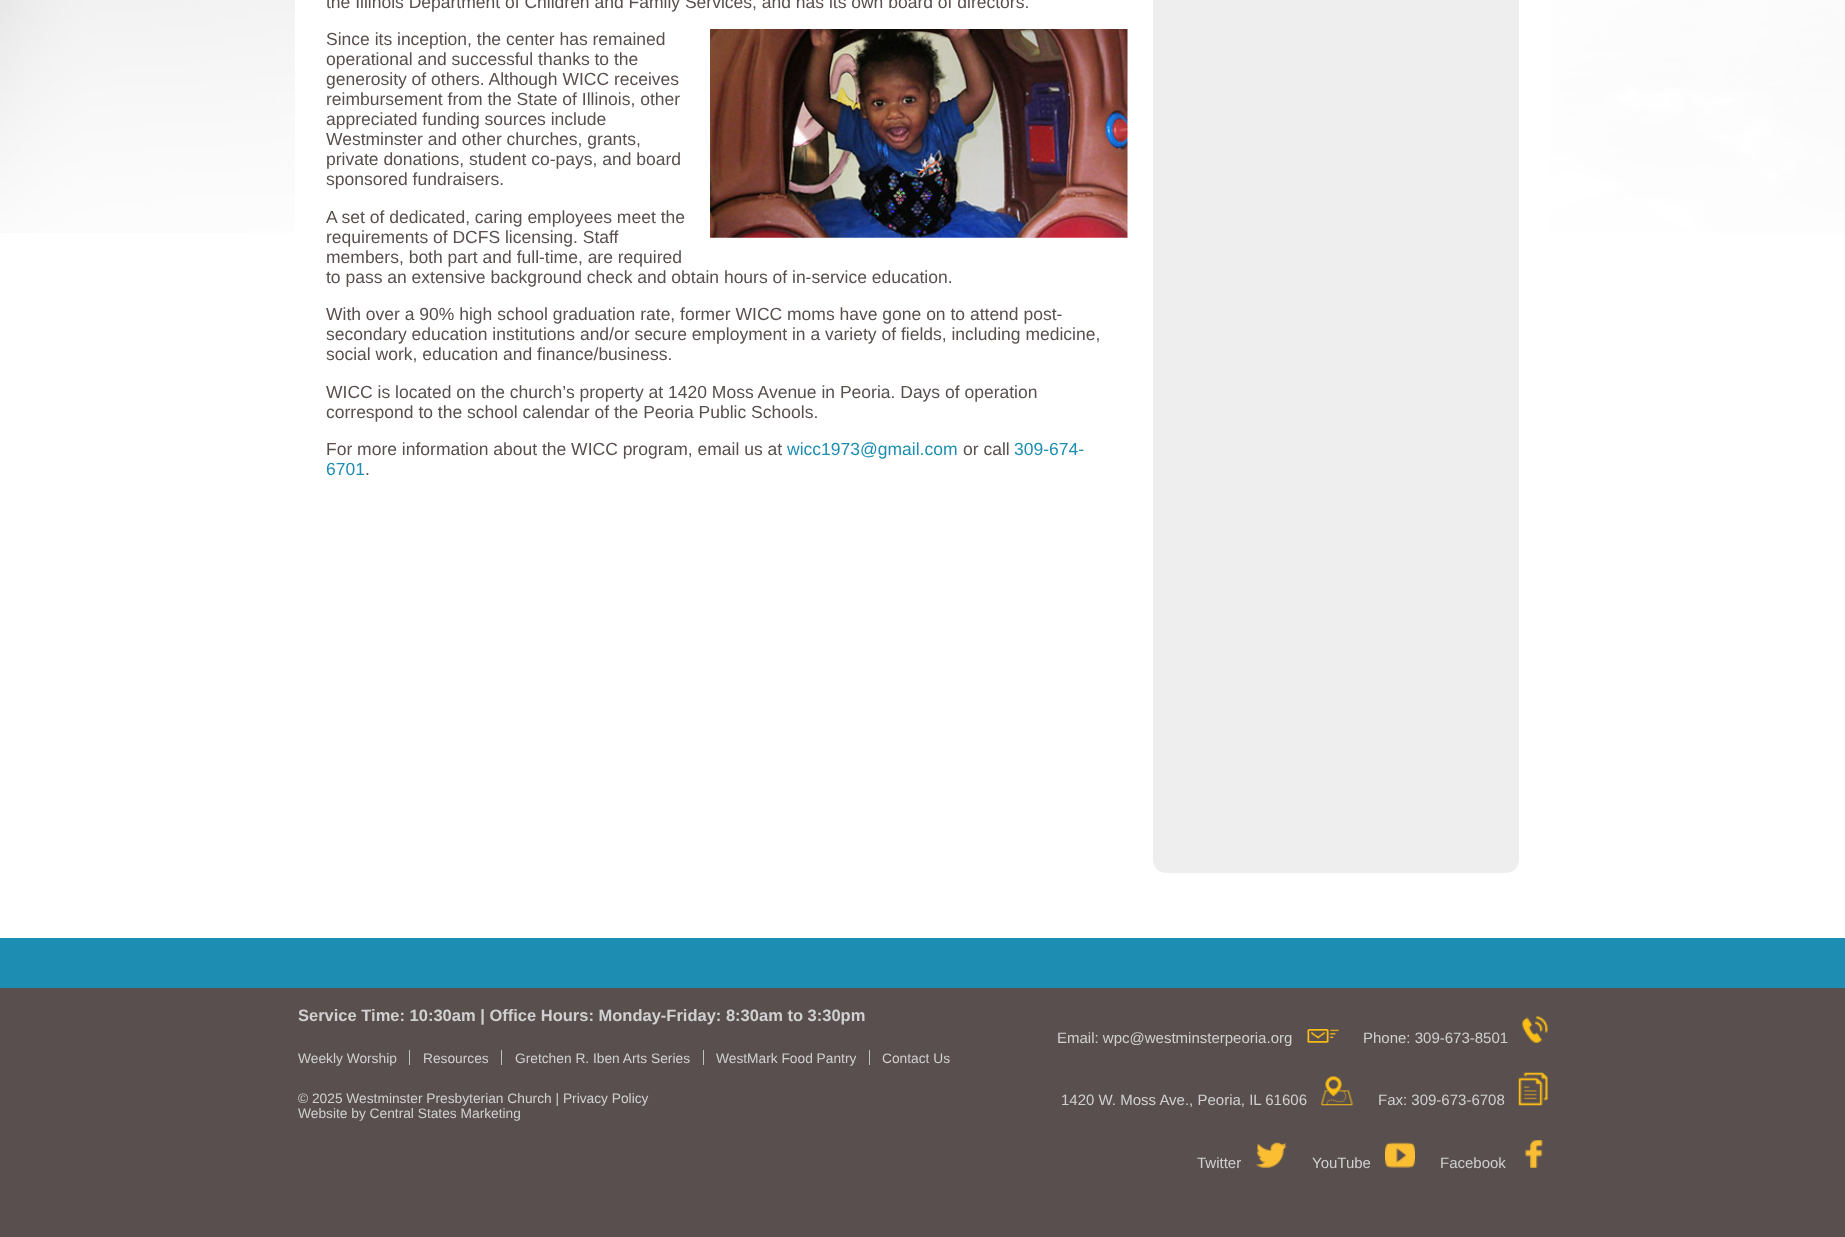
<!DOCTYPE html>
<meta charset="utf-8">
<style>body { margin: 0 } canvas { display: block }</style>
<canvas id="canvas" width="1845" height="1237"></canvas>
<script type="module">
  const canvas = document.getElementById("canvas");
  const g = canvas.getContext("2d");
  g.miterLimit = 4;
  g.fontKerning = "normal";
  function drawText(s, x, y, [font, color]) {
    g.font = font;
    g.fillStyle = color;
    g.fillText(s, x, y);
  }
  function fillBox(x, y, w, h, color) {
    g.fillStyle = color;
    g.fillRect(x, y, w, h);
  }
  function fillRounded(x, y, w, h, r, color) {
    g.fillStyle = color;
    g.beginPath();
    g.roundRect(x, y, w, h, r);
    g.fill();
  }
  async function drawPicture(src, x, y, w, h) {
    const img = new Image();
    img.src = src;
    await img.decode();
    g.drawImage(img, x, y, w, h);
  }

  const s1 = ["17.5px Liberation Sans", "#594F4F"];
  const s2 = ["17.5px Liberation Sans", "#1D8DB2"];
  const s3 = ["bold 16.5px Liberation Sans", "#D0D0D0"];
  const s4 = ["13.75px Liberation Sans", "#D0D0D0"];
  const s5 = ["15px Liberation Sans", "#D0D0D0"];

  fillBox(0, 0, 1845, 1237, "#594F4F");
  fillBox(0, 233, 1845, 705, "#FFFFFF");
  await drawPicture("pic1.png", 0, 0, 1845, 233);
  fillRounded(295, -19, 1255, 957, 19, "#FFFFFF");
  drawText("the Illinois Department of Children and Family Services, and has its own board of directors.", 326, 8, s1);
  drawText("Since its inception, the center has remained", 326, 45, s1);
  await drawPicture("pic2.png", 710, 29, 418, 209);
  drawText("operational and successful thanks to the", 326, 65, s1);
  drawText("generosity of others. Although WICC receives", 326, 85, s1);
  drawText("reimbursement from the State of Illinois, other", 326, 105, s1);
  drawText("appreciated funding sources include", 326, 125, s1);
  drawText("Westminster and other churches, grants,", 326, 145, s1);
  drawText("private donations, student co-pays, and board", 326, 165, s1);
  drawText("sponsored fundraisers.", 326, 185, s1);
  drawText("A set of dedicated, caring employees meet the", 326, 223, s1);
  drawText("requirements of DCFS licensing. Staff", 326, 243, s1);
  drawText("members, both part and full-time, are required", 326, 263, s1);
  drawText("to pass an extensive background check and obtain hours of in-service education.", 326, 283, s1);
  drawText("With over a 90% high school graduation rate, former WICC moms have gone on to attend post-", 326, 320, s1);
  drawText("secondary education institutions and/or secure employment in a variety of fields, including medicine,", 326, 340, s1);
  drawText("social work, education and finance/business.", 326, 360, s1);
  drawText("WICC is located on the church’s property at 1420 Moss Avenue in Peoria. Days of operation", 326, 398, s1);
  drawText("correspond to the school calendar of the Peoria Public Schools.", 326, 418, s1);
  drawText("For more information about the WICC program, email us at", 326, 455, s1);
  drawText("wicc1973@gmail.com", 787, 455, s2);
  drawText("or call", 963, 455, s1);
  drawText("309-674-", 1014, 455, s2);
  drawText("6701", 326, 475, s2);
  drawText(".", 365, 475, s1);
  g.fillStyle = "#EEEEEE";
  g.beginPath();
  g.moveTo(1153, -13);
  g.lineTo(1519, -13);
  g.lineTo(1519, 860);
  g.bezierCurveTo(1519, 867, 1513, 873, 1506, 873);
  g.lineTo(1166, 873);
  g.bezierCurveTo(1159, 873, 1153, 867, 1153, 860);
  g.closePath();
  g.fill();
  fillBox(0, 938, 1845, 50, "#1D8DB2");
  drawText("Service Time: 10:30am | Office Hours: Monday-Friday: 8:30am to 3:30pm", 298, 1021, s3);
  drawText("Weekly Worship", 298, 1063, s4);
  fillBox(409, 1050, 1, 15, "#C1C1C1");
  drawText("Resources", 423, 1063, s4);
  fillBox(501, 1050, 1, 15, "#C1C1C1");
  drawText("Gretchen R. Iben Arts Series", 515, 1063, s4);
  fillBox(703, 1050, 1, 15, "#C1C1C1");
  drawText("WestMark Food Pantry", 716, 1063, s4);
  fillBox(869, 1050, 1, 15, "#C1C1C1");
  drawText("Contact Us", 882, 1063, s4);
  drawText("© 2025 Westminster Presbyterian Church | Privacy Policy", 298, 1103, s4);
  drawText("Website by Central States Marketing", 298, 1118, s4);
  drawText("Email: wpc@westminsterpeoria.org", 1057, 1043, s5);
  await drawPicture("pic3.png", 1307, 1029, 32, 14);
  drawText("Phone: 309-673-8501", 1363, 1043, s5);
  await drawPicture("pic4.png", 1522, 1016, 26, 27);
  drawText("1420 W. Moss Ave., Peoria, IL 61606", 1061, 1105, s5);
  await drawPicture("pic5.png", 1321, 1076, 32, 30);
  drawText("Fax: 309-673-6708", 1378, 1105, s5);
  await drawPicture("pic6.png", 1518, 1072, 30, 34);
  drawText("Twitter", 1197, 1168, s5);
  await drawPicture("pic7.png", 1255, 1142, 32, 26);
  drawText("YouTube", 1312, 1168, s5);
  await drawPicture("pic8.png", 1385, 1142, 30, 26);
  drawText("Facebook", 1440, 1168, s5);
  await drawPicture("pic9.png", 1524, 1140, 19, 28);
</script>
